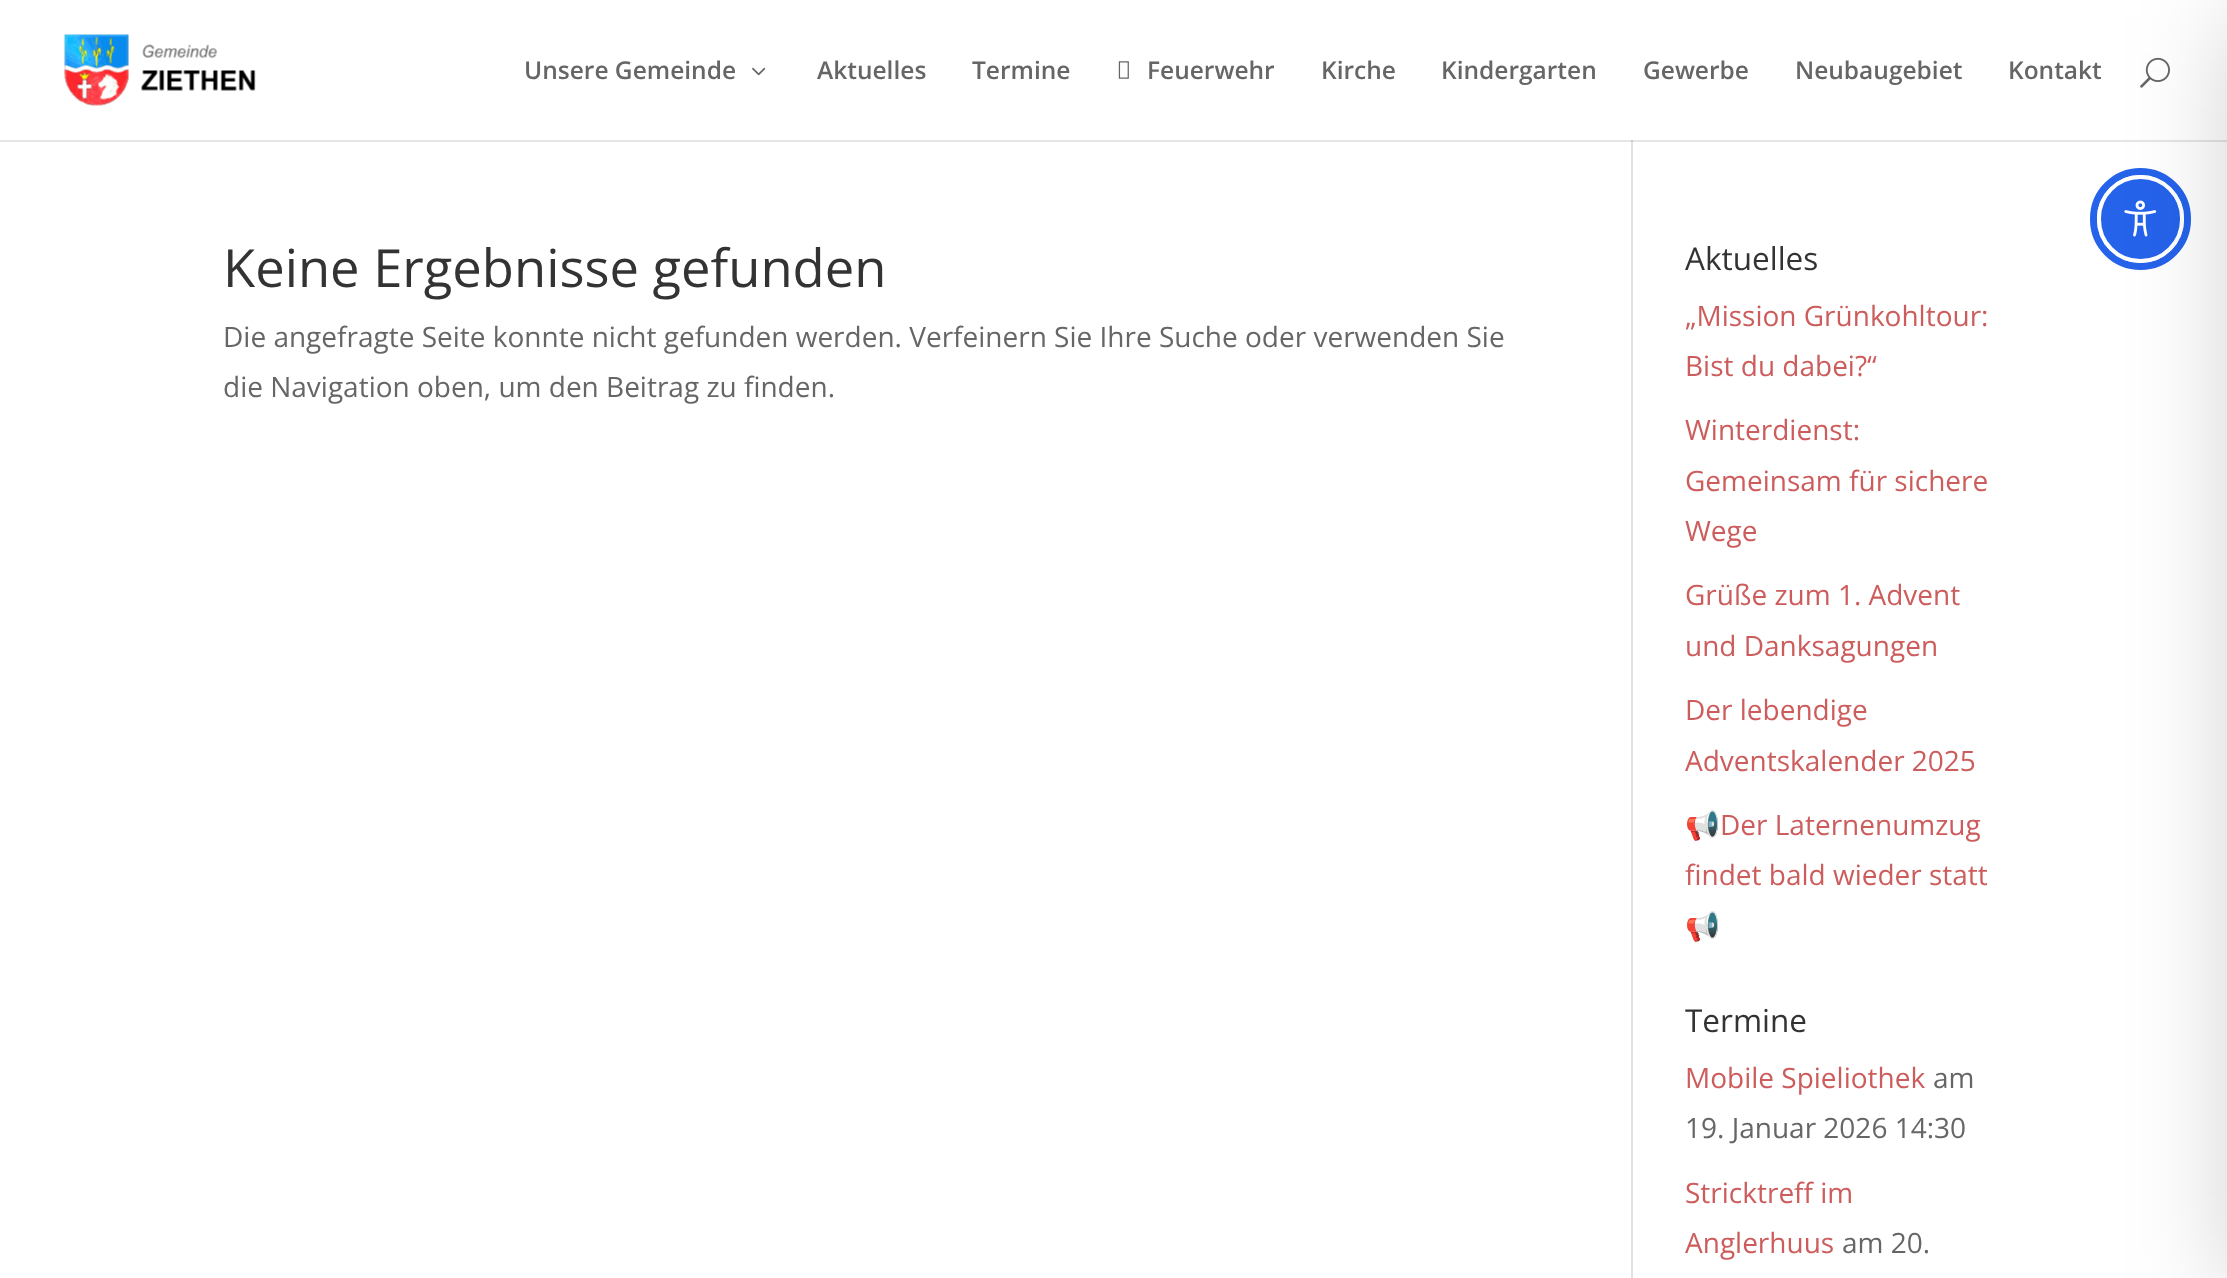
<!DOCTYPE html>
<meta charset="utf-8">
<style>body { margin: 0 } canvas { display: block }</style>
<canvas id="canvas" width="2227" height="1278"></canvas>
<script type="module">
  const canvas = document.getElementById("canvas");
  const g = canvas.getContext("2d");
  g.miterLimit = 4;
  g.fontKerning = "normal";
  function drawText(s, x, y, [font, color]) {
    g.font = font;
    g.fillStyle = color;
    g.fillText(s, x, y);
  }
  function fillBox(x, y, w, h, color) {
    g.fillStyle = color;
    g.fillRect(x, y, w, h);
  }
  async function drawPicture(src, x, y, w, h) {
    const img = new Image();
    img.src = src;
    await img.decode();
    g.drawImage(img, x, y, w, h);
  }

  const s1 = ["600 24.5px Open Sans", "#666666"];
  const s2 = ["52.5px Open Sans", "#333333"];
  const s3 = ["28px Open Sans", "#666666"];
  const s4 = ["31.5px Open Sans", "#333333"];
  const s5 = ["28px Open Sans", "#CD5C5C"];
  const s6 = ["28px Noto Color Emoji", "#CD5C5C"];

  fillBox(0, 0, 2227, 1278, "#FFFFFF");
  fillBox(1631, 140, 2, 1138, "#E2E2E2");
  g.fillStyle = "rgba(0, 0, 0, 0.1)";
  g.beginPath();
  g.moveTo(0, 140);
  g.lineTo(0, 142);
  g.lineTo(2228, 142);
  g.lineTo(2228, 2);
  g.lineTo(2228, 140);
  g.closePath();
  g.fill();
  await drawPicture("pic1.png", 64, 34, 192, 72);
  drawText("Unsere Gemeinde", 524, 79, s1);
  await drawPicture("pic2.png", 752, 67, 14, 9);
  drawText("Aktuelles", 817, 79, s1);
  drawText("Termine", 972, 79, s1);
  await drawPicture("pic3.png", 1118, 61, 11, 18);
  drawText("Feuerwehr", 1147, 79, s1);
  drawText("Kirche", 1321, 79, s1);
  drawText("Kindergarten", 1441, 79, s1);
  drawText("Gewerbe", 1643, 79, s1);
  drawText("Neubaugebiet", 1795, 79, s1);
  drawText("Kontakt", 2008, 79, s1);
  await drawPicture("pic4.png", 2140, 57, 30, 31);
  drawText("Keine Ergebnisse gefunden", 223, 287, s2);
  drawText("Die angefragte Seite konnte nicht gefunden werden. Verfeinern Sie Ihre Suche oder verwenden Sie", 223, 347, s3);
  drawText("die Navigation oben, um den Beitrag zu finden.", 223, 397, s3);
  drawText("Aktuelles", 1685, 270, s4);
  drawText("„Mission Grünkohltour:", 1685, 326, s5);
  drawText("Bist du dabei?“", 1685, 376, s5);
  drawText("Winterdienst:", 1685, 440, s5);
  drawText("Gemeinsam für sichere", 1685, 491, s5);
  drawText("Wege", 1685, 541, s5);
  drawText("Grüße zum 1. Advent", 1685, 605, s5);
  drawText("und Danksagungen", 1685, 656, s5);
  drawText("Der lebendige", 1685, 720, s5);
  drawText("Adventskalender 2025", 1685, 771, s5);
  drawText("📢", 1685, 835, s6);
  drawText("Der Laternenumzug", 1720, 835, s5);
  drawText("findet bald wieder statt", 1685, 885, s5);
  drawText("📢", 1685, 936, s6);
  drawText("Termine", 1685, 1032, s4);
  drawText("Mobile Spieliothek", 1685, 1088, s5);
  drawText("am", 1933, 1088, s3);
  drawText("19. Januar 2026 14:30", 1685, 1138, s3);
  drawText("Stricktreff im", 1685, 1203, s5);
  drawText("Anglerhuus", 1685, 1253, s5);
  drawText("am 20.", 1842, 1253, s3);
  g.beginPath();
  g.roundRect(2093.5, 171.5, 94, 95, 47);
  g.strokeStyle = "#2563EB";
  g.lineWidth = 7;
  g.stroke();
  g.fillStyle = "#2563EB";
  g.beginPath();
  g.roundRect(2099, 177, 83, 84, 41.5);
  g.fill();
  g.strokeStyle = "#FFFFFF";
  g.lineWidth = 4;
  g.stroke();
  await drawPicture("pic5.png", 2124, 200, 33, 37);
  g.fillStyle = "rgba(0, 0, 0, 0.2)";
  g.filter = "blur(52.5px)";
  g.beginPath();
  g.rect(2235, 18, 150, 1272);
  g.fill();
  g.filter = "none";
</script>
